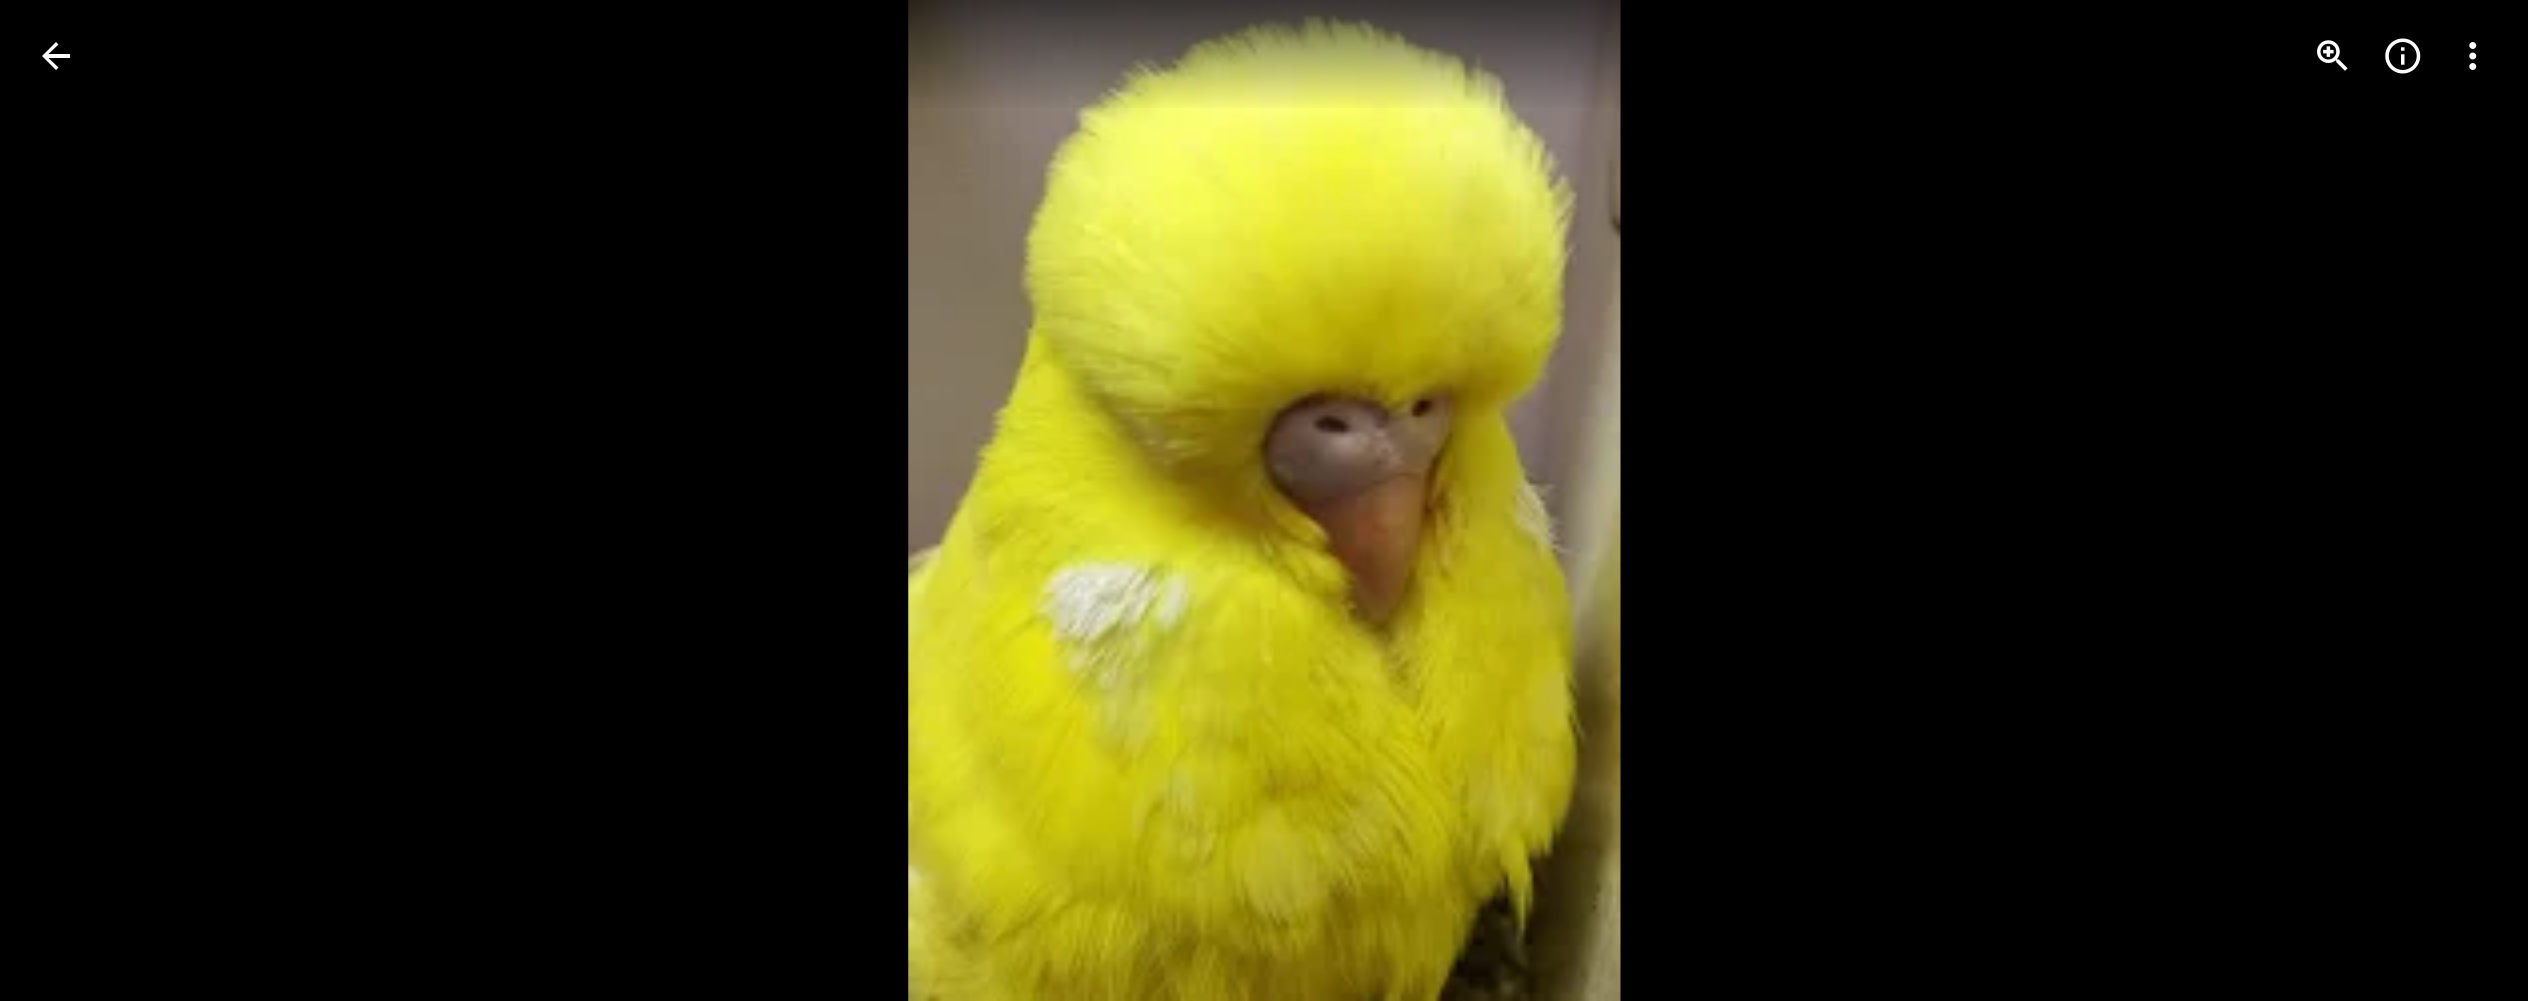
<!DOCTYPE html>
<meta charset="utf-8">
<style>body { margin: 0 } canvas { display: block }</style>
<canvas id="canvas" width="2528" height="1001"></canvas>
<script type="module">
  const canvas = document.getElementById("canvas");
  const g = canvas.getContext("2d");
  g.miterLimit = 4;
  g.fontKerning = "normal";
  function fillBox(x, y, w, h, color) {
    g.fillStyle = color;
    g.fillRect(x, y, w, h);
  }
  async function drawPicture(src, x, y, w, h) {
    const img = new Image();
    img.src = src;
    await img.decode();
    g.drawImage(img, x, y, w, h);
  }
  let gradient;

  fillBox(0, 0, 2528, 1001, "#000000");
  await drawPicture("pic4.png", 908, 0, 713, 1001);
  gradient = g.createLinearGradient(1264, 0, 1264, 112);
  gradient.addColorStop(0, "rgba(0, 0, 0, 0.6)");
  gradient.addColorStop(1, "rgba(0, 0, 0, 0)");
  g.fillStyle = gradient;
  g.fillRect(908, 0, 713, 108);
  g.fillStyle = "#FFFFFF";
  g.beginPath();
  g.moveTo(70, 54);
  g.lineTo(48.5, 54);
  g.lineTo(58.5, 44.5);
  g.lineTo(56, 42);
  g.lineTo(42, 56);
  g.lineTo(56, 70);
  g.lineTo(58.5, 67.5);
  g.lineTo(48.5, 58);
  g.lineTo(70, 58);
  g.closePath();
  g.fill();
  await drawPicture("pic1.png", 2317, 40, 31, 31);
  await drawPicture("pic2.png", 2385, 38, 36, 36);
  await drawPicture("pic3.png", 2469, 42, 8, 28);
</script>
